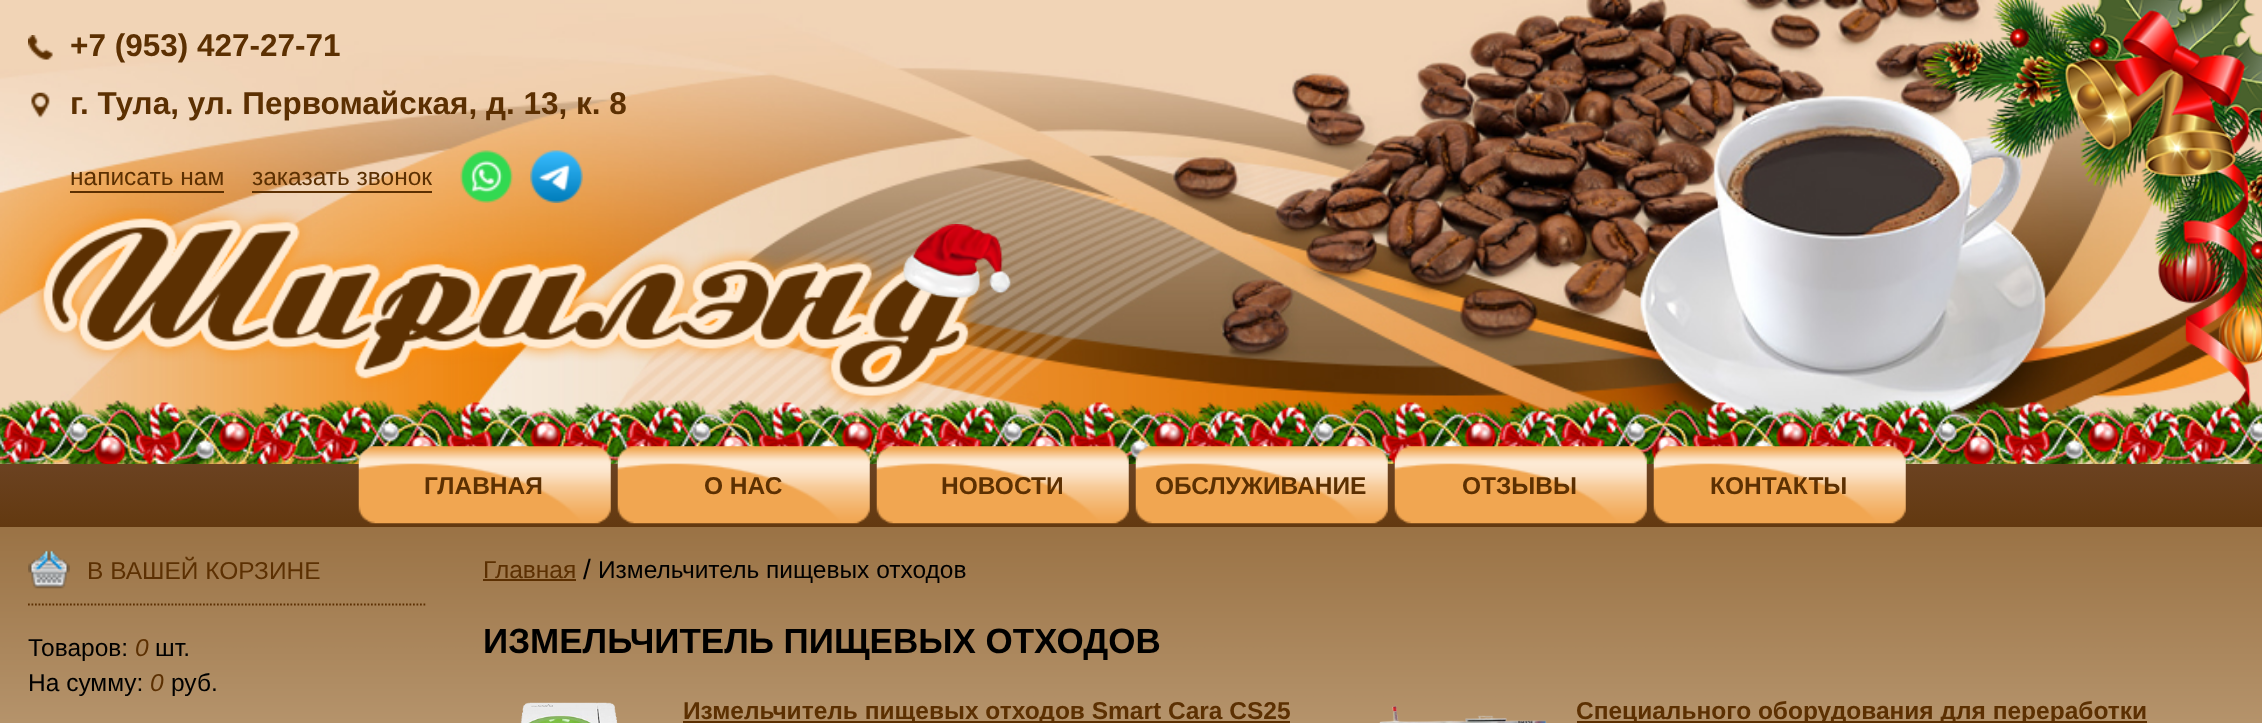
<!DOCTYPE html>
<meta charset="utf-8">
<style>body { margin: 0 } canvas { display: block }</style>
<canvas id="canvas" width="2262" height="723"></canvas>
<script type="module">
  const canvas = document.getElementById("canvas");
  const g = canvas.getContext("2d");
  g.miterLimit = 4;
  g.fontKerning = "normal";
  function drawText(s, x, y, [font, color]) {
    g.font = font;
    g.fillStyle = color;
    g.fillText(s, x, y);
  }
  function fillBox(x, y, w, h, color) {
    g.fillStyle = color;
    g.fillRect(x, y, w, h);
  }
  async function drawPicture(src, x, y, w, h) {
    const img = new Image();
    img.src = src;
    await img.decode();
    g.drawImage(img, x, y, w, h);
  }
  let gradient;

  const s1 = ["bold 31.5px Liberation Sans", "#5C3002"];
  const s2 = ["24.5px Liberation Sans", "#5C3002"];
  const s3 = ["bold 24.5px Liberation Sans", "#5C3002"];
  const s4 = ["24.5px Liberation Sans", "#000000"];
  const s5 = ["italic 24.5px Liberation Sans", "#5C3002"];
  const s6 = ["28px Liberation Sans", "#000000"];
  const s7 = ["bold 35px Liberation Sans", "#000000"];

  fillBox(0, 0, 2262, 723, "#FFFFFF");
  await drawPicture("pic1.png", 0, 0, 2262, 464);
  await drawPicture("pic2.png", 28, 35, 25, 25);
  drawText("+7 (953) 427-27-71", 70, 56, s1);
  await drawPicture("pic3.png", 31, 92, 19, 26);
  drawText("г. Тула, ул. Первомайская, д. 13, к. 8", 70, 114, s1);
  fillBox(70, 191, 154, 2, "#5C3002");
  drawText("написать нам", 70, 185, s2);
  fillBox(252, 191, 180, 2, "#5C3002");
  drawText("заказать звонок", 252, 185, s2);
  await drawPicture("pic4.png", 460, 150, 53, 53);
  await drawPicture("pic5.png", 530, 150, 53, 53);
  await drawPicture("pic6.png", 31, 208, 956, 201);
  await drawPicture("pic7.png", 903, 224, 108, 74);
  await drawPicture("pic8.png", 1923, 0, 339, 464);
  gradient = g.createLinearGradient(1131, 464, 1131, 527);
  gradient.addColorStop(0, "#6B4221");
  gradient.addColorStop(1, "#633910");
  g.fillStyle = gradient;
  g.fillRect(0, 464, 2262, 63);
  await drawPicture("pic9.png", 0, 400, 2262, 64);
  await drawPicture("pic10.png", 358, 446, 253, 78);
  drawText("ГЛАВНАЯ", 424, 494, s3);
  await drawPicture("pic11.png", 617, 446, 253, 78);
  drawText("О НАС", 704, 494, s3);
  await drawPicture("pic12.png", 876, 446, 253, 78);
  drawText("НОВОСТИ", 941, 494, s3);
  await drawPicture("pic13.png", 1135, 446, 253, 78);
  drawText("ОБСЛУЖИВАНИЕ", 1155, 494, s3);
  await drawPicture("pic14.png", 1394, 446, 253, 78);
  drawText("ОТЗЫВЫ", 1462, 494, s3);
  await drawPicture("pic15.png", 1653, 446, 253, 78);
  drawText("КОНТАКТЫ", 1710, 494, s3);
  await drawPicture("pic16.png", 0, 527, 2262, 196);
  await drawPicture("pic17.png", 28, 550, 42, 39);
  drawText("В ВАШЕЙ КОРЗИНЕ", 87, 579, s2);
  g.beginPath();
  g.moveTo(28, 604.5);
  g.lineTo(427, 604.5);
  g.strokeStyle = "#5C3002";
  g.lineWidth = 1.8;
  g.setLineDash([1.75, 1.75]);
  g.stroke();
  drawText("Товаров:", 28, 656, s4);
  drawText("0", 135, 656, s5);
  drawText("шт.", 155, 656, s4);
  drawText("На сумму:", 28, 691, s4);
  drawText("0", 150, 691, s5);
  drawText("руб.", 171, 691, s4);
  drawText("Главная", 483, 578, s2);
  fillBox(483, 579, 93, 2, "#5C3002");
  drawText("/", 583, 579, s6);
  drawText("Измельчитель пищевых отходов", 598, 578, s4);
  drawText("ИЗМЕЛЬЧИТЕЛЬ ПИЩЕВЫХ ОТХОДОВ", 483, 653, s7);
  await drawPicture("pic18.png", 520, 702, 98, 21);
  fillBox(683, 721, 607, 2, "#5C3002");
  drawText("Измельчитель пищевых отходов Smart Cara CS25", 683, 719, s3);
  await drawPicture("pic19.png", 1379, 705, 168, 18);
  fillBox(1577, 721, 570, 2, "#5C3002");
  drawText("Специального оборудования для переработки", 1576, 719, s3);
</script>
